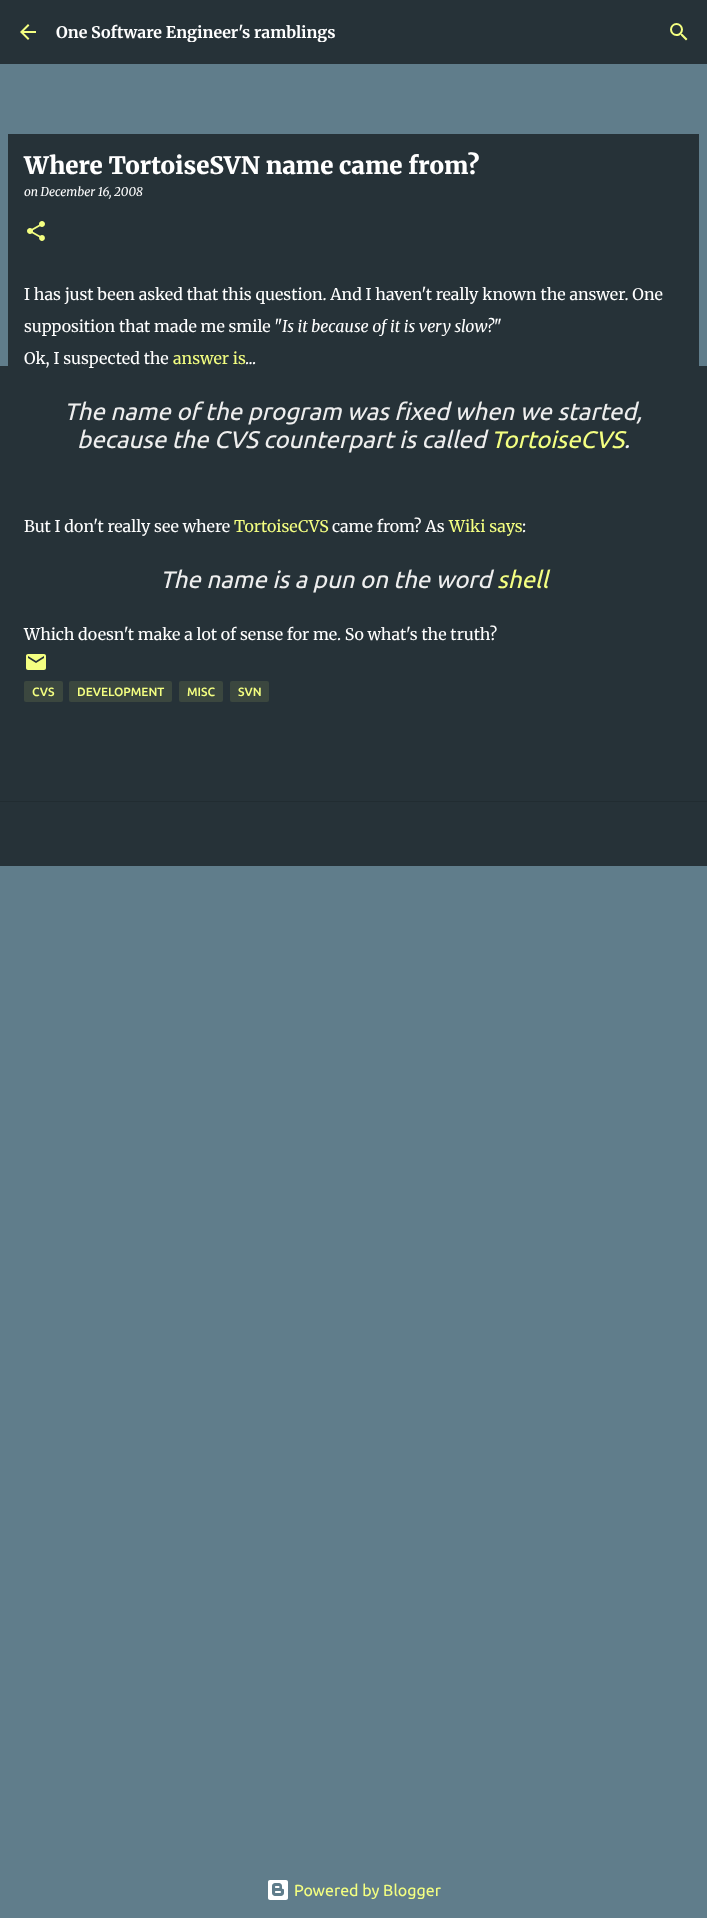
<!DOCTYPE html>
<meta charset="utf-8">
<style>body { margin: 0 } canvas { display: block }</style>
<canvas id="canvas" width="707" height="1918"></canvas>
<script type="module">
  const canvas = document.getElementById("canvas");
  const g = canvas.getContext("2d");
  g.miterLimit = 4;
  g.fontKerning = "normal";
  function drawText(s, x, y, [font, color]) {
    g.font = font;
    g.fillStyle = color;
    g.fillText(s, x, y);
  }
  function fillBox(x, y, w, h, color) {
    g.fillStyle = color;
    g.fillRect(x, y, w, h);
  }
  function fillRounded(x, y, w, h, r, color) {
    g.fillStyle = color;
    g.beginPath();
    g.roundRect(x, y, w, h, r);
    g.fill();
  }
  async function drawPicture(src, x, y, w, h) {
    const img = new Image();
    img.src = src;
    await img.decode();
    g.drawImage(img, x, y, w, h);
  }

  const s1 = ["bold 16px Merriweather", "#FFFFFF"];
  const s2 = ["900 24px Merriweather", "#FFFFFF"];
  const s3 = ["italic 12px Merriweather", "#FFFFFF"];
  const s4 = ["16px Merriweather", "#FFFFFF"];
  const s5 = ["italic 16px Merriweather", "#FFFFFF"];
  const s6 = ["16px Merriweather", "#F4FF81"];
  const s7 = ["italic 24px Ubuntu", "#EEEEEE"];
  const s8 = ["italic 24px Ubuntu", "#F4FF81"];
  const s9 = ["500 12px Ubuntu", "#F4FF81"];
  const s10 = ["16px Ubuntu", "#F4FF81"];

  fillBox(0, 0, 707, 1918, "#607D8B");
  fillBox(0, 0, 707, 64, "#263238");
  await drawPicture("pic1.png", 20, 24, 16, 16);
  g.save();
  g.beginPath();
  g.rect(56, 22, 595, 20);
  g.clip();
  drawText("One Software Engineer's ramblings", 56, 38, s1);
  g.restore();
  await drawPicture("pic2.png", 670, 23, 18, 18);
  fillBox(0, 366, 707, 435, "#263238");
  fillBox(8, 134, 691, 232, "#263238");
  drawText("Where TortoiseSVN name came from?", 24, 174, s2);
  drawText("on December 16, 2008", 24, 196, s3);
  await drawPicture("pic3.png", 27, 221, 18, 20);
  drawText("I has just been asked that this question. And I haven't really known the answer. One", 24, 300, s4);
  drawText("supposition that made me smile \"", 24, 332, s4);
  drawText("Is it because of it is very slow?", 282, 332, s5);
  drawText("\"", 494, 332, s4);
  drawText("Ok, I suspected the", 24, 364, s4);
  drawText("answer is", 173, 364, s6);
  drawText("...", 245, 364, s4);
  drawText("The name of the program was fixed when we started,", 64, 420, s7);
  drawText("because the CVS counterpart is called", 77, 448, s7);
  drawText("TortoiseCVS", 491, 448, s8);
  drawText(".", 624, 448, s7);
  drawText("But I don't really see where", 24, 532, s4);
  drawText("TortoiseCVS", 234, 532, s6);
  drawText("came from? As", 332, 532, s4);
  drawText("Wiki says", 449, 532, s6);
  drawText(":", 522, 532, s4);
  drawText("The name is a pun on the word", 160, 588, s7);
  drawText("shell", 497, 588, s8);
  drawText("Which doesn't make a lot of sense for me. So what's the truth?", 24, 640, s4);
  await drawPicture("pic4.png", 26, 654, 20, 16);
  fillRounded(24, 681, 39, 21, 2, "#3B473F");
  drawText("CVS", 32, 696, s9);
  fillRounded(69, 681, 103, 21, 2, "#3B473F");
  drawText("DEVELOPMENT", 77, 696, s9);
  fillRounded(179, 681, 44, 21, 2, "#3B473F");
  drawText("MISC", 187, 696, s9);
  fillRounded(230, 681, 39, 21, 2, "#3B473F");
  drawText("SVN", 238, 696, s9);
  fillBox(0, 802, 707, 64, "#263238");
  fillBox(0, 801, 707, 1, "#212C31");
  await drawPicture("pic5.png", 268, 1880, 20, 20);
  drawText("Powered by Blogger", 294, 1896, s10);
</script>
